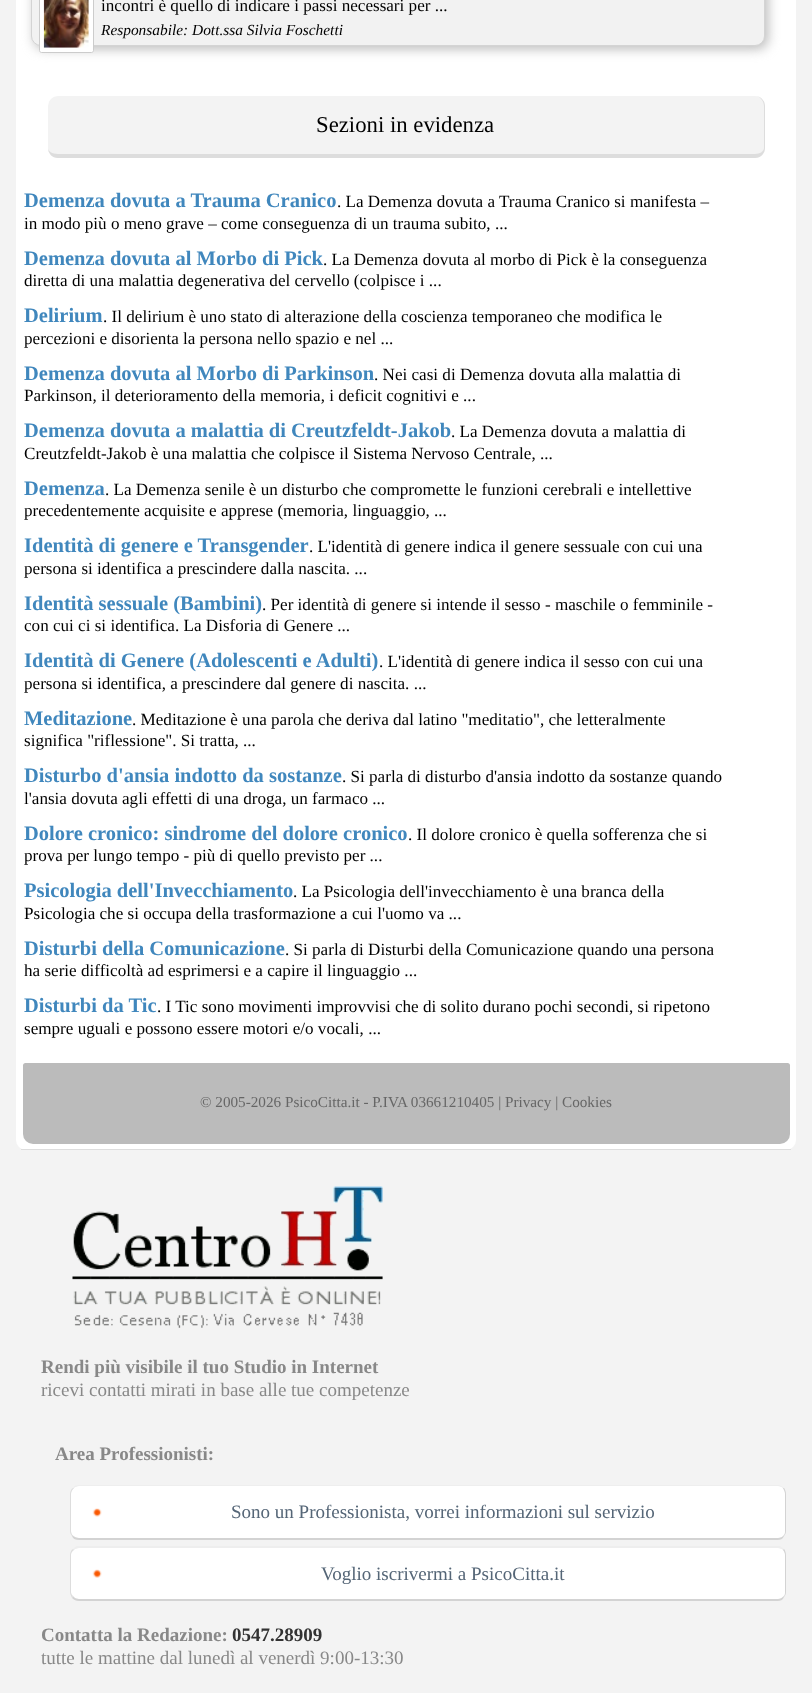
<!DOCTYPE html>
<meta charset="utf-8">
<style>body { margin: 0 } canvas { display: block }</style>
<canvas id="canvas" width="812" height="1693"></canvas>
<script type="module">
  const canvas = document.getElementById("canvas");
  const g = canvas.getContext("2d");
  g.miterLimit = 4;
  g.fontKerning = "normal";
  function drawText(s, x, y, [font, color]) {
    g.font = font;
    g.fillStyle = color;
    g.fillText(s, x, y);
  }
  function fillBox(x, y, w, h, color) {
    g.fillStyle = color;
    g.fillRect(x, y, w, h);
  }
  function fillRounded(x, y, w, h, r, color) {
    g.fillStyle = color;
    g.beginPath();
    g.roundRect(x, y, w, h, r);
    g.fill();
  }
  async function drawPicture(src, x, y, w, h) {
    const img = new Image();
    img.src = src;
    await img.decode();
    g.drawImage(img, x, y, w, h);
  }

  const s1 = ["17.1px Liberation Serif", "#000000"];
  const s2 = ["italic 15.4px Liberation Serif", "#000000"];
  const s3 = ["22.75px Liberation Serif", "#000000"];
  const s4 = ["bold 20.5px Liberation Serif", "#4087BD"];
  const s5 = ["15.2px Liberation Serif", "#666666"];
  const s6 = ["bold 19px Liberation Serif", "#888888"];
  const s7 = ["19px Liberation Serif", "#888888"];
  const s8 = ["19px Liberation Serif", "#556677"];
  const s9 = ["bold 19px Liberation Serif", "#333333"];

  fillBox(0, 0, 812, 1693, "#F3F3F3");
  fillRounded(16, -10, 780, 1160, 10, "#FFFFFF");
  fillBox(21, 1149, 770, 1, "#DDDDDD");
  g.fillStyle = "#BBBBBB";
  g.filter = "blur(6px)";
  g.beginPath();
  g.roundRect(34, -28, 734, 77, 10);
  g.fill();
  g.filter = "none";
  g.fillStyle = "#F2F2F2";
  g.beginPath();
  g.roundRect(31.5, -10.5, 733, 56, 9.5);
  g.fill();
  g.strokeStyle = "#D4D4D4";
  g.stroke();
  g.fillStyle = "#FFFFFF";
  g.beginPath();
  g.moveTo(44, -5.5);
  g.lineTo(89, -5.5);
  g.bezierCurveTo(91.5, -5.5, 93.5, -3.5, 93.5, -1);
  g.lineTo(93.5, 50.5);
  g.bezierCurveTo(93.5, 51.5, 92.5, 52.5, 91.5, 52.5);
  g.lineTo(41.5, 52.5);
  g.bezierCurveTo(40.5, 52.5, 39.5, 51.5, 39.5, 50.5);
  g.lineTo(39.5, -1);
  g.bezierCurveTo(39.5, -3.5, 41.5, -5.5, 44, -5.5);
  g.closePath();
  g.fill();
  g.strokeStyle = "#CCCCCC";
  g.stroke();
  await drawPicture("pic1.png", 43, 0, 46, 48);
  drawText("incontri è quello di indicare i passi necessari per ...", 101, 11, s1);
  drawText("Responsabile: Dott.ssa Silvia Foschetti", 101, 35, s2);
  fillRounded(48, 96, 717, 62, 10, "#F3F3F3");
  g.fillStyle = "#DDDDDD";
  g.beginPath();
  g.moveTo(58, 96);
  g.lineTo(755, 96);
  g.bezierCurveTo(761, 96, 765, 101, 765, 106);
  g.lineTo(765, 148);
  g.bezierCurveTo(765, 153, 761, 158, 755, 158);
  g.lineTo(58, 158);
  g.bezierCurveTo(52, 158, 48, 153, 48, 148);
  g.lineTo(48, 106);
  g.bezierCurveTo(48, 101, 52, 96, 58, 96);
  g.closePath();
  g.moveTo(58, 96);
  g.lineTo(755, 96);
  g.bezierCurveTo(760, 96, 764, 101, 764, 106);
  g.lineTo(764, 148);
  g.bezierCurveTo(764, 151, 760, 154, 755, 154);
  g.lineTo(58, 154);
  g.bezierCurveTo(52, 154, 48, 151, 48, 148);
  g.lineTo(48, 106);
  g.bezierCurveTo(48, 101, 52, 96, 58, 96);
  g.closePath();
  g.fill("evenodd");
  drawText("Sezioni in evidenza", 316, 132, s3);
  drawText("Demenza dovuta a Trauma Cranico", 24, 207, s4);
  drawText(". La Demenza dovuta a Trauma Cranico si manifesta –", 337, 207, s1);
  drawText("in modo più o meno grave – come conseguenza di un trauma subito, ...", 24, 229, s1);
  drawText("Demenza dovuta al Morbo di Pick", 24, 265, s4);
  drawText(". La Demenza dovuta al morbo di Pick è la conseguenza", 323, 265, s1);
  drawText("diretta di una malattia degenerativa del cervello (colpisce i ...", 24, 286, s1);
  drawText("Delirium", 24, 322, s4);
  drawText(". Il delirium è uno stato di alterazione della coscienza temporaneo che modifica le", 103, 322, s1);
  drawText("percezioni e disorienta la persona nello spazio e nel ...", 24, 344, s1);
  drawText("Demenza dovuta al Morbo di Parkinson", 24, 380, s4);
  drawText(". Nei casi di Demenza dovuta alla malattia di", 374, 380, s1);
  drawText("Parkinson, il deterioramento della memoria, i deficit cognitivi e ...", 24, 401, s1);
  drawText("Demenza dovuta a malattia di Creutzfeldt-Jakob", 24, 437, s4);
  drawText(". La Demenza dovuta a malattia di", 451, 437, s1);
  drawText("Creutzfeldt-Jakob è una malattia che colpisce il Sistema Nervoso Centrale, ...", 24, 459, s1);
  drawText("Demenza", 24, 495, s4);
  drawText(". La Demenza senile è un disturbo che compromette le funzioni cerebrali e intellettive", 105, 495, s1);
  drawText("precedentemente acquisite e apprese (memoria, linguaggio, ...", 24, 516, s1);
  drawText("Identità di genere e Transgender", 24, 552, s4);
  drawText(". L'identità di genere indica il genere sessuale con cui una", 309, 552, s1);
  drawText("persona si identifica a prescindere dalla nascita. ...", 24, 574, s1);
  drawText("Identità sessuale (Bambini)", 24, 610, s4);
  drawText(". Per identità di genere si intende il sesso - maschile o femminile -", 262, 610, s1);
  drawText("con cui ci si identifica. La Disforia di Genere ...", 24, 631, s1);
  drawText("Identità di Genere (Adolescenti e Adulti)", 24, 667, s4);
  drawText(". L'identità di genere indica il sesso con cui una", 379, 667, s1);
  drawText("persona si identifica, a prescindere dal genere di nascita. ...", 24, 689, s1);
  drawText("Meditazione", 24, 725, s4);
  drawText(". Meditazione è una parola che deriva dal latino \"meditatio\", che letteralmente", 132, 725, s1);
  drawText("significa \"riflessione\". Si tratta, ...", 24, 746, s1);
  drawText("Disturbo d'ansia indotto da sostanze", 24, 782, s4);
  drawText(". Si parla di disturbo d'ansia indotto da sostanze quando", 342, 782, s1);
  drawText("l'ansia dovuta agli effetti di una droga, un farmaco ...", 24, 804, s1);
  drawText("Dolore cronico: sindrome del dolore cronico", 24, 840, s4);
  drawText(". Il dolore cronico è quella sofferenza che si", 408, 840, s1);
  drawText("prova per lungo tempo - più di quello previsto per ...", 24, 861, s1);
  drawText("Psicologia dell'Invecchiamento", 24, 897, s4);
  drawText(". La Psicologia dell'invecchiamento è una branca della", 293, 897, s1);
  drawText("Psicologia che si occupa della trasformazione a cui l'uomo va ...", 24, 919, s1);
  drawText("Disturbi della Comunicazione", 24, 955, s4);
  drawText(". Si parla di Disturbi della Comunicazione quando una persona", 285, 955, s1);
  drawText("ha serie difficoltà ad esprimersi e a capire il linguaggio ...", 24, 976, s1);
  drawText("Disturbi da Tic", 24, 1012, s4);
  drawText(". I Tic sono movimenti improvvisi che di solito durano pochi secondi, si ripetono", 157, 1012, s1);
  drawText("sempre uguali e possono essere motori e/o vocali, ...", 24, 1034, s1);
  g.fillStyle = "#BBBBBB";
  g.beginPath();
  g.roundRect(23, 1063, 767, 81, [2.5, 2.5, 10, 10]);
  g.fill();
  drawText("© 2005-2026 PsicoCitta.it - P.IVA 03661210405 | Privacy | Cookies", 200, 1107, s5);
  await drawPicture("pic2.png", 72, 1186, 311, 142);
  drawText("Rendi più visibile il tuo Studio in Internet", 41, 1373, s6);
  drawText("ricevi contatti mirati in base alle tue competenze", 41, 1396, s7);
  drawText("Area Professionisti:", 55, 1460, s6);
  g.fillStyle = "#FFFFFF";
  g.beginPath();
  g.moveTo(79, 1486);
  g.lineTo(778, 1486);
  g.bezierCurveTo(782, 1486, 785, 1490, 785, 1494);
  g.lineTo(785, 1531);
  g.bezierCurveTo(785, 1535, 782, 1538, 778, 1538);
  g.lineTo(79, 1538);
  g.bezierCurveTo(75, 1538, 71, 1535, 71, 1531);
  g.lineTo(71, 1494);
  g.bezierCurveTo(71, 1490, 75, 1486, 79, 1486);
  g.closePath();
  g.fill();
  await drawPicture("pic3.png", 92, 1508, 10, 9);
  g.fillStyle = "#EEEEEE";
  g.beginPath();
  g.moveTo(79, 1485);
  g.bezierCurveTo(76, 1485, 74, 1486, 73, 1488);
  g.lineTo(74, 1488);
  g.bezierCurveTo(75, 1487, 77, 1486, 79, 1486);
  g.lineTo(778, 1486);
  g.bezierCurveTo(780, 1486, 782, 1487, 783, 1488);
  g.lineTo(784, 1488);
  g.bezierCurveTo(782, 1486, 780, 1485, 778, 1485);
  g.closePath();
  g.fill();
  g.fillStyle = "#D3D3D3";
  g.beginPath();
  g.moveTo(784, 1488);
  g.bezierCurveTo(785, 1489, 786, 1492, 786, 1494);
  g.lineTo(786, 1531);
  g.bezierCurveTo(786, 1533, 785, 1535, 784, 1536);
  g.lineTo(784, 1535);
  g.bezierCurveTo(785, 1534, 785, 1533, 785, 1531);
  g.lineTo(785, 1494);
  g.bezierCurveTo(785, 1492, 784, 1490, 783, 1488);
  g.closePath();
  g.fill();
  g.beginPath();
  g.moveTo(79, 1540);
  g.lineTo(778, 1540);
  g.bezierCurveTo(780, 1540, 783, 1539, 784, 1536);
  g.lineTo(784, 1535);
  g.bezierCurveTo(783, 1537, 780, 1538, 778, 1538);
  g.lineTo(79, 1538);
  g.bezierCurveTo(77, 1538, 74, 1537, 72, 1535);
  g.lineTo(72, 1536);
  g.bezierCurveTo(73, 1539, 76, 1540, 79, 1540);
  g.closePath();
  g.fill();
  g.fillStyle = "#DDDDDD";
  g.beginPath();
  g.moveTo(70, 1494);
  g.lineTo(70, 1531);
  g.bezierCurveTo(70, 1533, 71, 1535, 72, 1536);
  g.lineTo(72, 1535);
  g.bezierCurveTo(72, 1534, 71, 1533, 71, 1531);
  g.lineTo(71, 1494);
  g.bezierCurveTo(71, 1492, 72, 1490, 74, 1488);
  g.lineTo(73, 1488);
  g.bezierCurveTo(71, 1489, 70, 1492, 70, 1494);
  g.closePath();
  g.fill();
  drawText("Sono un Professionista, vorrei informazioni sul servizio", 231, 1518, s8);
  g.fillStyle = "#FFFFFF";
  g.beginPath();
  g.moveTo(79, 1548);
  g.lineTo(778, 1548);
  g.bezierCurveTo(782, 1548, 785, 1551, 785, 1555);
  g.lineTo(785, 1592);
  g.bezierCurveTo(785, 1596, 782, 1599, 778, 1599);
  g.lineTo(79, 1599);
  g.bezierCurveTo(75, 1599, 71, 1596, 71, 1592);
  g.lineTo(71, 1555);
  g.bezierCurveTo(71, 1551, 75, 1548, 79, 1548);
  g.closePath();
  g.fill();
  await drawPicture("pic4.png", 92, 1569, 10, 9);
  g.fillStyle = "#EEEEEE";
  g.beginPath();
  g.moveTo(79, 1548);
  g.bezierCurveTo(77, 1548, 75, 1549, 74, 1550);
  g.lineTo(73, 1549);
  g.bezierCurveTo(74, 1548, 75, 1547, 77, 1546);
  g.lineTo(780, 1546);
  g.bezierCurveTo(781, 1547, 783, 1548, 784, 1549);
  g.lineTo(783, 1550);
  g.bezierCurveTo(782, 1549, 780, 1548, 778, 1548);
  g.closePath();
  g.fill();
  g.fillStyle = "#D3D3D3";
  g.beginPath();
  g.moveTo(784, 1549);
  g.bezierCurveTo(785, 1550, 786, 1553, 786, 1555);
  g.lineTo(786, 1592);
  g.bezierCurveTo(786, 1594, 785, 1596, 784, 1597);
  g.lineTo(784, 1596);
  g.bezierCurveTo(785, 1595, 785, 1594, 785, 1592);
  g.lineTo(785, 1555);
  g.bezierCurveTo(785, 1553, 784, 1551, 783, 1550);
  g.closePath();
  g.fill();
  g.beginPath();
  g.moveTo(784, 1597);
  g.bezierCurveTo(783, 1600, 780, 1601, 778, 1601);
  g.lineTo(79, 1601);
  g.bezierCurveTo(76, 1601, 74, 1600, 72, 1598);
  g.lineTo(73, 1596);
  g.bezierCurveTo(74, 1598, 77, 1599, 79, 1599);
  g.lineTo(778, 1599);
  g.bezierCurveTo(780, 1599, 782, 1598, 784, 1596);
  g.closePath();
  g.fill();
  g.fillStyle = "#DDDDDD";
  g.beginPath();
  g.moveTo(70, 1555);
  g.lineTo(70, 1592);
  g.bezierCurveTo(70, 1594, 71, 1596, 72, 1598);
  g.lineTo(73, 1596);
  g.bezierCurveTo(72, 1595, 71, 1594, 71, 1592);
  g.lineTo(71, 1555);
  g.bezierCurveTo(71, 1553, 72, 1551, 74, 1550);
  g.lineTo(73, 1549);
  g.bezierCurveTo(71, 1550, 70, 1553, 70, 1555);
  g.closePath();
  g.fill();
  drawText("Voglio iscrivermi a PsicoCitta.it", 321, 1580, s8);
  drawText("Contatta la Redazione:", 41, 1641, s6);
  drawText("0547.28909", 232, 1641, s9);
  drawText("tutte le mattine dal lunedì al venerdì 9:00-13:30", 41, 1664, s7);
</script>
